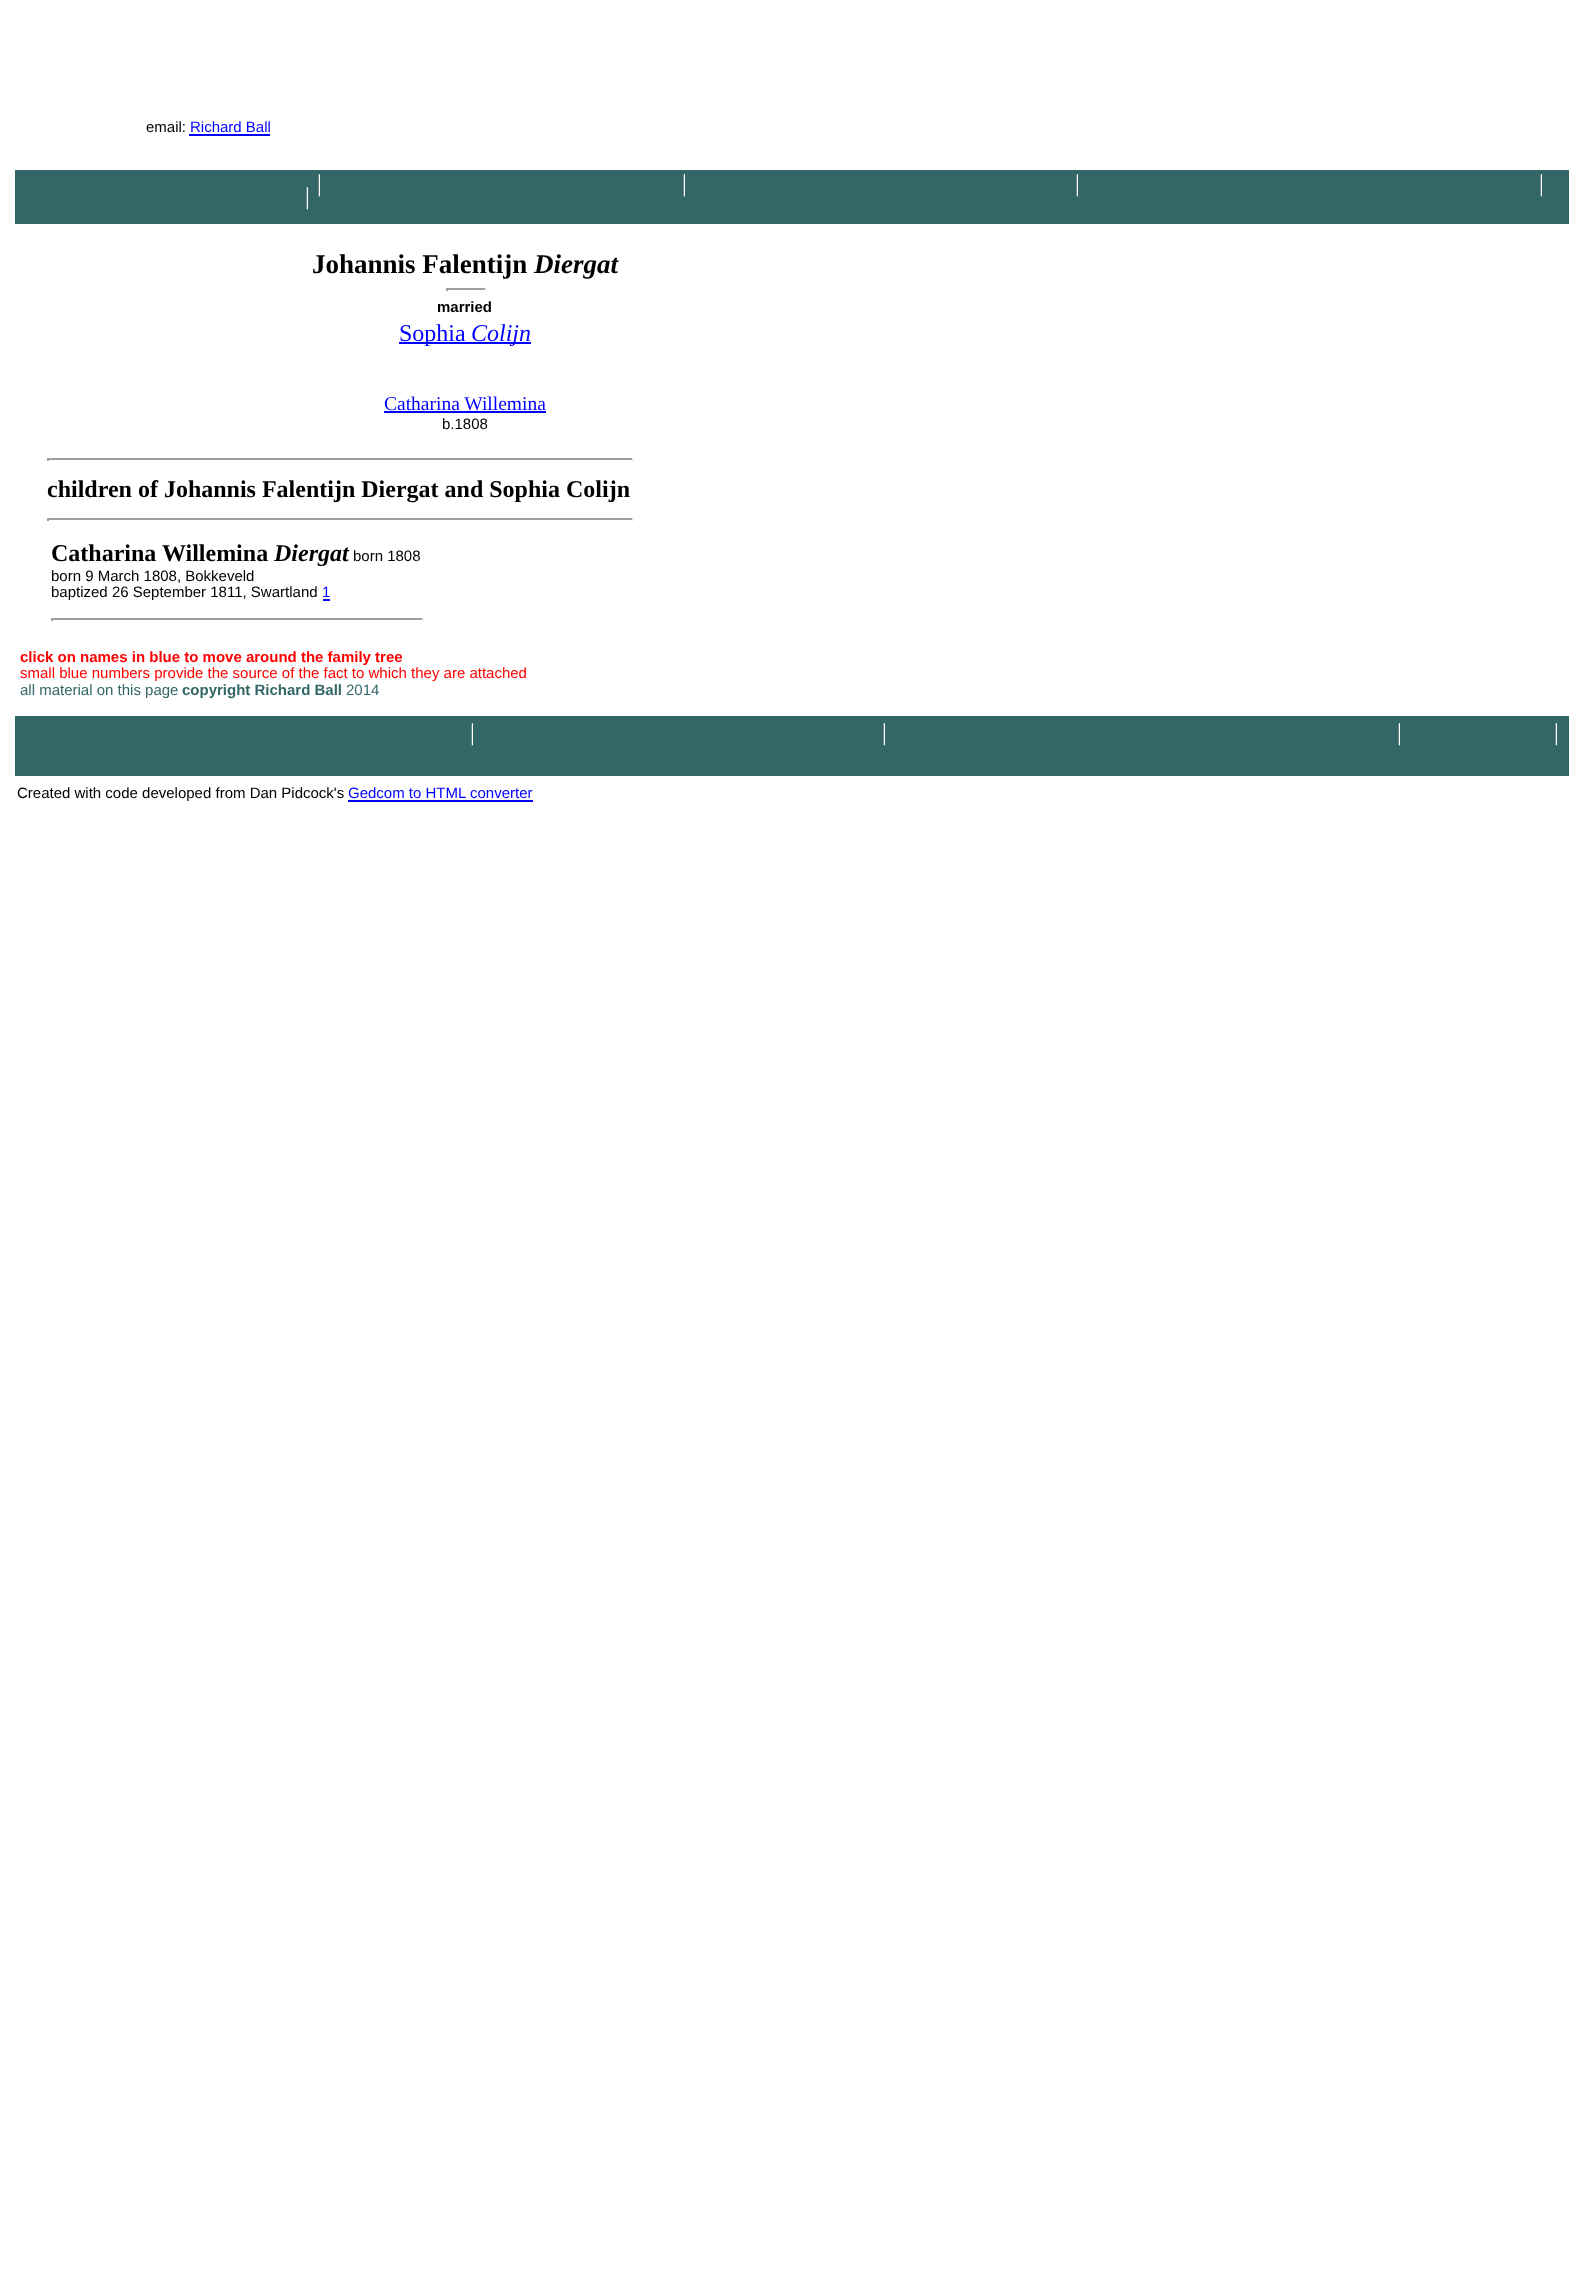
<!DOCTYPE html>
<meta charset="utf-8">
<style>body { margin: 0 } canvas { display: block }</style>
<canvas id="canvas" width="1584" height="2286"></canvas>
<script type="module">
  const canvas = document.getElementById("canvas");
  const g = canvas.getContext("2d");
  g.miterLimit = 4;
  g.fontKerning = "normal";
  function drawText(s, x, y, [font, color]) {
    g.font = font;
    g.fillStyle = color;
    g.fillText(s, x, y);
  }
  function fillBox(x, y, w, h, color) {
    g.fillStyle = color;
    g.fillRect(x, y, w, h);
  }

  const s1 = ["15px Liberation Sans", "#000000"];
  const s2 = ["15px Liberation Sans", "#0000FF"];
  const s3 = ["24px Liberation Serif", "#FFFFFF"];
  const s4 = ["bold 27px Liberation Serif", "#000000"];
  const s5 = ["italic bold 27px Liberation Serif", "#000000"];
  const s6 = ["bold 15px Liberation Sans", "#000000"];
  const s7 = ["24px Liberation Serif", "#0000FF"];
  const s8 = ["italic 24px Liberation Serif", "#0000FF"];
  const s9 = ["19.5px Liberation Serif", "#0000FF"];
  const s10 = ["bold 24px Liberation Serif", "#000000"];
  const s11 = ["italic bold 24px Liberation Serif", "#000000"];
  const s12 = ["bold 15px Liberation Sans", "#FF0000"];
  const s13 = ["15px Liberation Sans", "#FF0000"];
  const s14 = ["15px Liberation Sans", "#336666"];
  const s15 = ["bold 15px Liberation Sans", "#336666"];

  fillBox(0, 0, 1584, 2286, "#FFFFFF");
  drawText("email:", 146, 132, s1);
  drawText("Richard Ball", 190, 132, s2);
  fillBox(189, 134, 81, 2, "#0000FF");
  fillBox(15, 170, 1554, 54, "#336666");
  drawText("|", 305, 204, s3);
  drawText("|", 317, 191, s3);
  drawText("|", 682, 191, s3);
  drawText("|", 1075, 191, s3);
  drawText("|", 1539, 191, s3);
  drawText("Johannis Falentijn", 312, 273, s4);
  drawText("Diergat", 534, 273, s5);
  fillBox(446, 288, 40, 2, "#9F9F9F");
  fillBox(485, 288, 2, 3, "#EEEEEE");
  fillBox(446, 288, 2, 3, "#9F9F9F");
  drawText("married", 437, 312, s6);
  fillBox(399, 342, 132, 2, "#0000FF");
  drawText("Sophia", 399, 341, s7);
  drawText("Colijn", 471, 341, s8);
  drawText("Catharina Willemina", 384, 410, s9);
  fillBox(384, 411, 162, 2, "#0000FF");
  drawText("b.1808", 442, 429, s1);
  fillBox(47, 458, 586, 2, "#9F9F9F");
  fillBox(632, 458, 2, 3, "#EEEEEE");
  fillBox(47, 458, 2, 3, "#9F9F9F");
  drawText("children of Johannis Falentijn Diergat and Sophia Colijn", 47, 497, s10);
  fillBox(47, 518, 586, 2, "#9F9F9F");
  fillBox(632, 518, 2, 3, "#EEEEEE");
  fillBox(47, 518, 2, 3, "#9F9F9F");
  drawText("Catharina Willemina", 51, 561, s10);
  drawText("Diergat", 274, 561, s11);
  drawText("born 1808", 353, 561, s1);
  drawText("born 9 March 1808, Bokkeveld", 51, 581, s1);
  drawText("baptized 26 September 1811, Swartland", 51, 597, s1);
  drawText("1", 322, 597, s2);
  fillBox(323, 599, 7, 2, "#0000FF");
  fillBox(51, 618, 372, 2, "#9F9F9F");
  fillBox(422, 618, 2, 3, "#EEEEEE");
  fillBox(51, 618, 2, 3, "#9F9F9F");
  drawText("click on names in blue to move around the family tree", 20, 662, s12);
  drawText("small blue numbers provide the source of the fact to which they are attached", 20, 678, s13);
  drawText("all material on this page", 20, 695, s14);
  drawText("copyright Richard Ball", 182, 695, s15);
  drawText("2014", 346, 695, s14);
  fillBox(15, 716, 1554, 60, "#336666");
  drawText("|", 470, 740, s3);
  drawText("|", 882, 740, s3);
  drawText("|", 1397, 740, s3);
  drawText("|", 1554, 740, s3);
  drawText("Created with code developed from Dan Pidcock's", 17, 798, s1);
  drawText("Gedcom to HTML converter", 348, 798, s2);
  fillBox(348, 800, 185, 2, "#0000FF");
</script>
